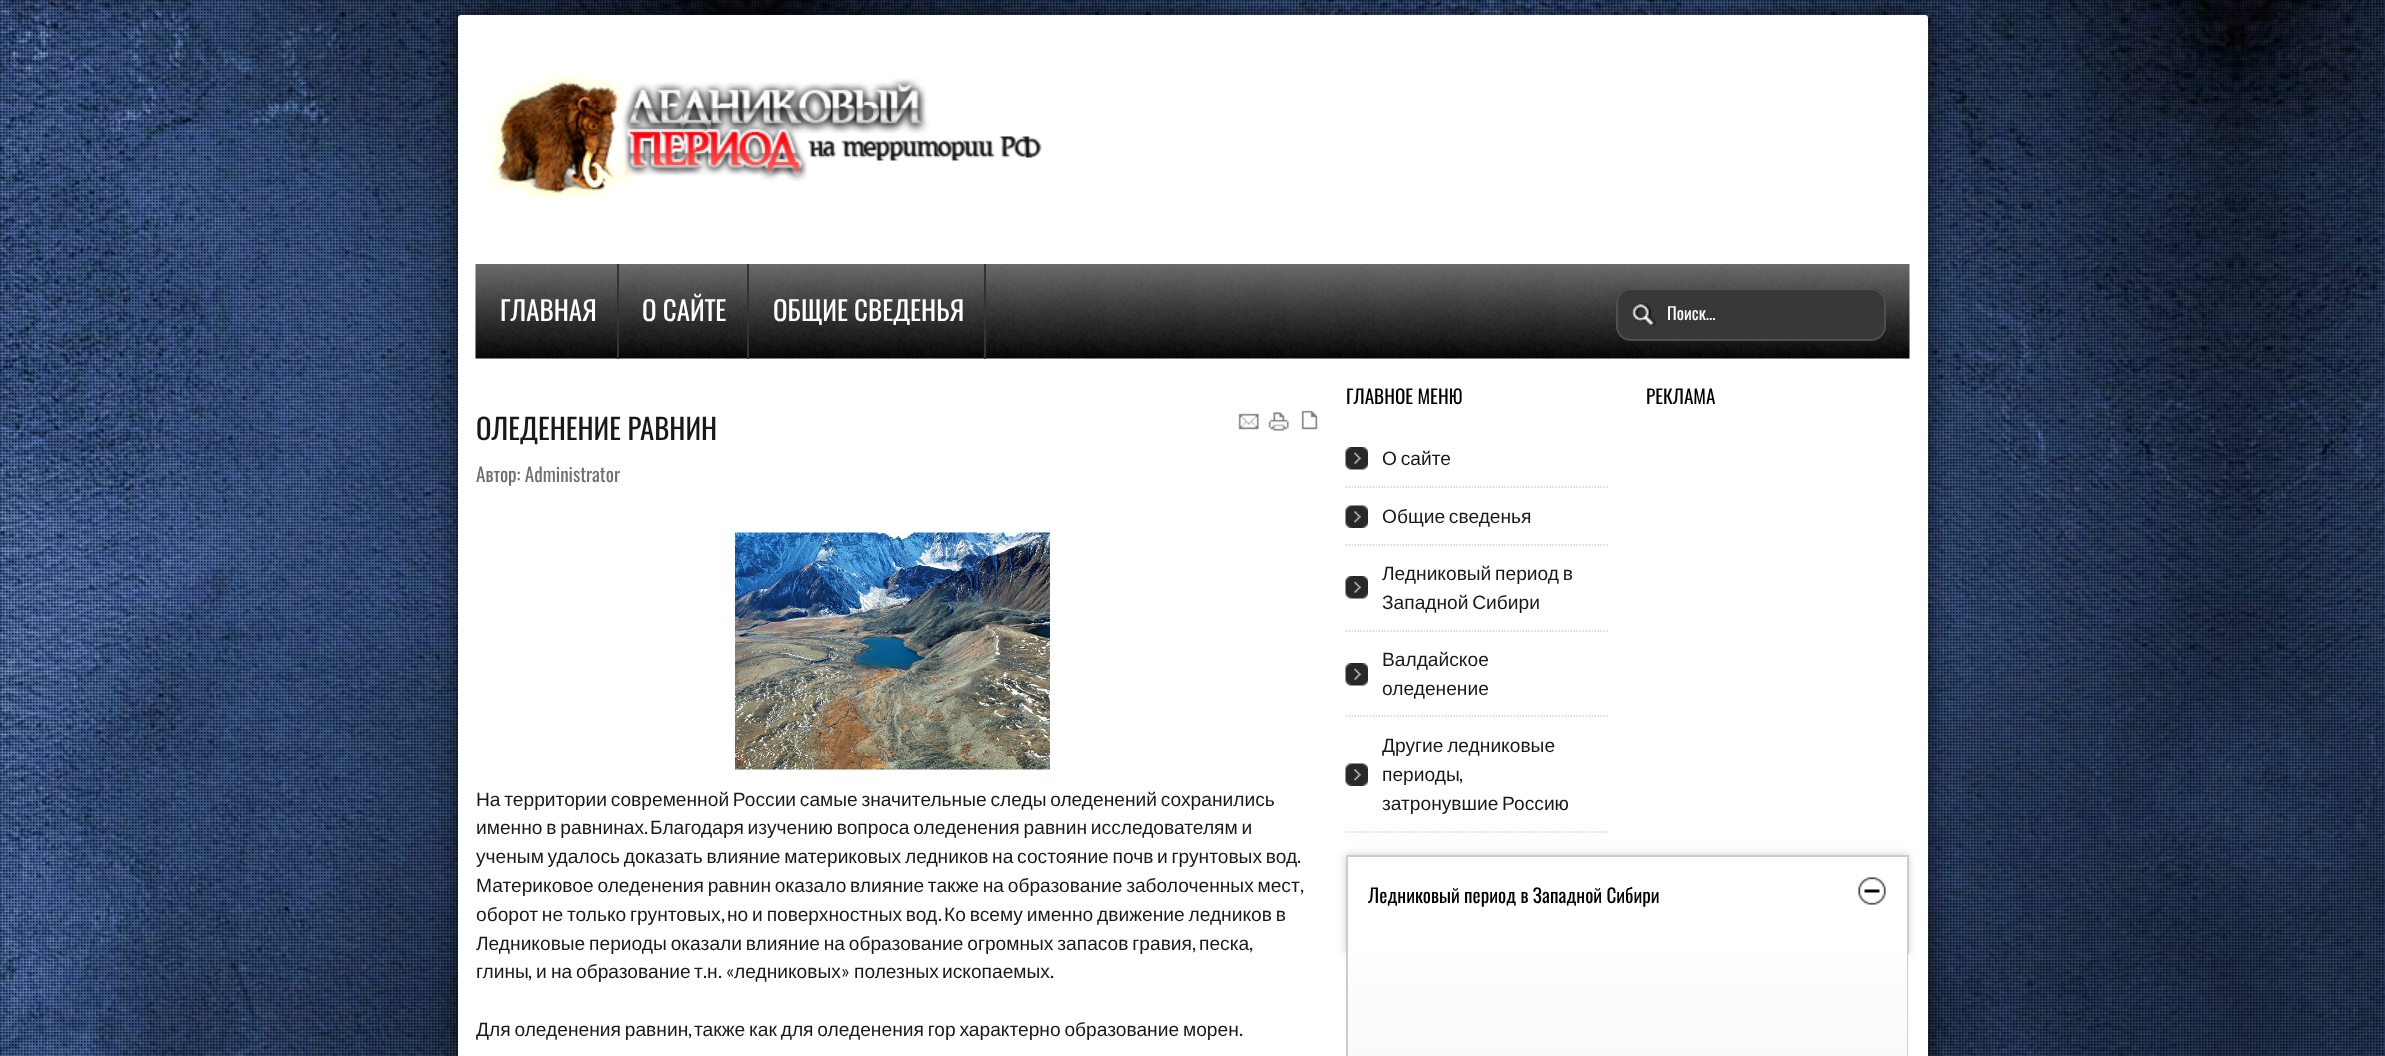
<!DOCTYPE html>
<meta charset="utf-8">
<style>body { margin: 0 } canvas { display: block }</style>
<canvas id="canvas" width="2385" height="1056"></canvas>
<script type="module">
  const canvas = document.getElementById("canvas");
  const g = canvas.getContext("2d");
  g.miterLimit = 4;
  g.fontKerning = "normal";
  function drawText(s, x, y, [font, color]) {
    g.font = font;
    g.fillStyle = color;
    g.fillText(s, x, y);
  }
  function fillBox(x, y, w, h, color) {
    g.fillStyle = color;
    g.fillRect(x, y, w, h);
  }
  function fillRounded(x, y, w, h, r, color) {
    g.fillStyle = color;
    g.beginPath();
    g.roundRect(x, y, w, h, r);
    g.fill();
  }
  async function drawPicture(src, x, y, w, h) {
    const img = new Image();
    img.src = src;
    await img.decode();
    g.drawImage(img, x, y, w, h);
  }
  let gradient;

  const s1 = ["27px Oswald", "#FFFFFF"];
  const s2 = ["17px Oswald", "#FFFFFF"];
  const s3 = ["28.75px Oswald", "#191919"];
  const s4 = ["19.2px Oswald", "#6F6F6F"];
  const s5 = ["19.2px Liberation Sans", "#191919"];
  const s6 = ["19.2px Lato", "#191919"];
  const s7 = ["19.2px Oswald", "#000000"];

  fillBox(0, 0, 2385, 1056, "#FFFFFF");
  await drawPicture("pic1.png", 0, 0, 2385, 1056);
  await drawPicture("pic2.png", 0, 0, 2385, 1056);
  g.fillStyle = "rgba(0, 0, 0, 0.7)";
  g.filter = "blur(11px)";
  g.beginPath();
  g.roundRect(458, 15, 1470, 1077, 3);
  g.fill();
  g.filter = "none";
  fillRounded(458, 15, 1470, 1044, 3, "#FFFFFF");
  await drawPicture("pic3.png", 487, 72, 555, 130);
  await drawPicture("pic4.png", 475, 264, 1435, 95);
  fillBox(617, 264, 2, 95, "#333333");
  drawText("ГЛАВНАЯ", 500, 321, s1);
  fillBox(747, 264, 2, 95, "#333333");
  drawText("О САЙТЕ", 642, 321, s1);
  fillBox(984, 264, 2, 95, "#333333");
  drawText("ОБЩИЕ СВЕДЕНЬЯ", 773, 321, s1);
  fillRounded(1616, 288, 270, 53, 15, "#393737");
  await drawPicture("pic5.png", 1632, 303, 24, 24);
  g.beginPath();
  g.roundRect(1617, 289, 268, 51, 14);
  g.strokeStyle = "#4F4F4F";
  g.lineWidth = 2;
  g.stroke();
  drawText("Поиск...", 1667, 320, s2);
  await drawPicture("pic6.png", 1238, 413, 21, 17);
  await drawPicture("pic7.png", 1268, 412, 21, 19);
  await drawPicture("pic8.png", 1301, 410, 17, 20);
  drawText("ОЛЕДЕНЕНИЕ РАВНИН", 476, 440, s3);
  drawText("Автор: Administrator", 476, 482, s4);
  await drawPicture("pic9.png", 735, 532, 315, 238);
  g.wordSpacing = "-1.6px";
  drawText("На территории современной России самые значительные следы оледенений сохранились", 476, 806, s5);
  g.wordSpacing = "-1.5px";
  drawText("именно в равнинах", 476, 834, s5);
  g.wordSpacing = "0px";
  drawText(".", 644, 834, s6);
  g.wordSpacing = "-1.5px";
  drawText("Благодаря изучению вопроса оледенения равнин исследователям и", 650, 834, s5);
  g.wordSpacing = "-1.6px";
  drawText("ученым удалось доказать влияние материковых ледников на состояние почв и грунтовых вод", 476, 863, s5);
  g.wordSpacing = "0px";
  drawText(".", 1297, 863, s6);
  g.wordSpacing = "-1.6px";
  drawText("Материковое оледенения равнин оказало влияние также на образование заболоченных мест", 476, 892, s5);
  g.wordSpacing = "0px";
  drawText(",", 1300, 892, s6);
  g.wordSpacing = "-1.5px";
  drawText("оборот не только грунтовых", 476, 921, s5);
  g.wordSpacing = "0px";
  drawText(",", 721, 921, s6);
  g.wordSpacing = "-1.5px";
  drawText("но и поверхностных вод", 727, 921, s5);
  g.wordSpacing = "0px";
  drawText(".", 938, 921, s6);
  g.wordSpacing = "-1.5px";
  drawText("Ко всему именно движение ледников в", 944, 921, s5);
  drawText("Ледниковые периоды оказали влияние на образование огромных запасов гравия", 476, 950, s5);
  g.wordSpacing = "0px";
  drawText(",", 1192, 950, s6);
  drawText("песка", 1199, 950, s5);
  drawText(",", 1249, 950, s6);
  drawText("глины", 476, 978, s5);
  drawText("и", 536, 978, s5);
  drawText("на", 551, 978, s5);
  drawText("образование", 576, 978, s5);
  drawText("т", 694, 978, s5);
  drawText("н", 707, 978, s5);
  drawText(". «", 718, 978, s6);
  drawText("ледниковых", 734, 978, s5);
  drawText("»", 841, 978, s6);
  drawText("полезных", 854, 978, s5);
  drawText("ископаемых", 942, 978, s5);
  drawText(",", 528, 978, s6);
  drawText(".", 703, 978, s6);
  drawText(".", 1050, 978, s6);
  g.wordSpacing = "-1.5px";
  drawText("Для оледенения равнин", 476, 1036, s5);
  g.wordSpacing = "0px";
  drawText(",", 688, 1036, s6);
  g.wordSpacing = "-1.5px";
  drawText("также как для оледенения гор характерно образование морен", 694, 1036, s5);
  g.wordSpacing = "0px";
  drawText(".", 1239, 1036, s6);
  drawText("ГЛАВНОЕ МЕНЮ", 1346, 404, s7);
  await drawPicture("pic10.png", 1345, 447, 23, 23);
  g.beginPath();
  g.moveTo(1345.5, 487);
  g.lineTo(1609.5, 487);
  g.strokeStyle = "#D3D3D3";
  g.lineWidth = 1.5;
  g.setLineDash([1.5, 1.5]);
  g.stroke();
  g.wordSpacing = "-1.6px";
  drawText("О сайте", 1382, 465, s5);
  await drawPicture("pic11.png", 1345, 505, 23, 23);
  g.beginPath();
  g.moveTo(1345.5, 545);
  g.lineTo(1609.5, 545);
  g.stroke();
  drawText("Общие сведенья", 1382, 523, s5);
  await drawPicture("pic10.png", 1345, 576, 23, 23);
  g.beginPath();
  g.moveTo(1345.5, 631);
  g.lineTo(1609.5, 631);
  g.stroke();
  drawText("Ледниковый период в", 1382, 580, s5);
  drawText("Западной Сибири", 1382, 609, s5);
  await drawPicture("pic10.png", 1345, 663, 23, 23);
  g.beginPath();
  g.moveTo(1345.5, 716);
  g.lineTo(1609.5, 716);
  g.stroke();
  g.wordSpacing = "0px";
  drawText("Валдайское", 1382, 666, s5);
  drawText("оледенение", 1382, 695, s5);
  await drawPicture("pic11.png", 1345, 763, 23, 23);
  g.beginPath();
  g.moveTo(1345.5, 832);
  g.lineTo(1609.5, 832);
  g.stroke();
  g.wordSpacing = "-1.6px";
  drawText("Другие ледниковые", 1382, 752, s5);
  g.wordSpacing = "0px";
  drawText("периоды", 1382, 781, s5);
  drawText(",", 1459, 781, s6);
  g.wordSpacing = "-1.6px";
  drawText("затронувшие Россию", 1382, 810, s5);
  g.wordSpacing = "0px";
  drawText("РЕКЛАМА", 1646, 404, s7);
  g.save();
  g.beginPath();
  g.moveTo(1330, 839);
  g.lineTo(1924, 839);
  g.lineTo(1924, 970);
  g.lineTo(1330, 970);
  g.closePath();
  g.moveTo(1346, 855);
  g.lineTo(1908, 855);
  g.lineTo(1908, 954);
  g.lineTo(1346, 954);
  g.closePath();
  g.clip("evenodd");
  g.fillStyle = "rgba(0, 0, 0, 0.2)";
  g.filter = "blur(5px)";
  g.beginPath();
  g.rect(1346, 855, 562, 99);
  g.fill();
  g.filter = "none";
  g.restore();
  await drawPicture("pic12.png", 1858, 877, 28, 28);
  fillBox(1346, 855, 562, 2, "#CCCCCC");
  fillBox(1907, 855, 2, 99, "#CCCCCC");
  fillBox(1346, 855, 2, 201, "#CCCCCC");
  drawText("Ледниковый период в Западной Сибири", 1368, 903, s7);
  gradient = g.createLinearGradient(1627, 936, 1627, 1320);
  gradient.addColorStop(0, "#FFFFFF");
  gradient.addColorStop(1, "#EFEEEE");
  g.fillStyle = gradient;
  g.fillRect(1348, 954, 559, 102);
  fillBox(1907, 954, 1, 102, "#CCCCCC");
</script>
